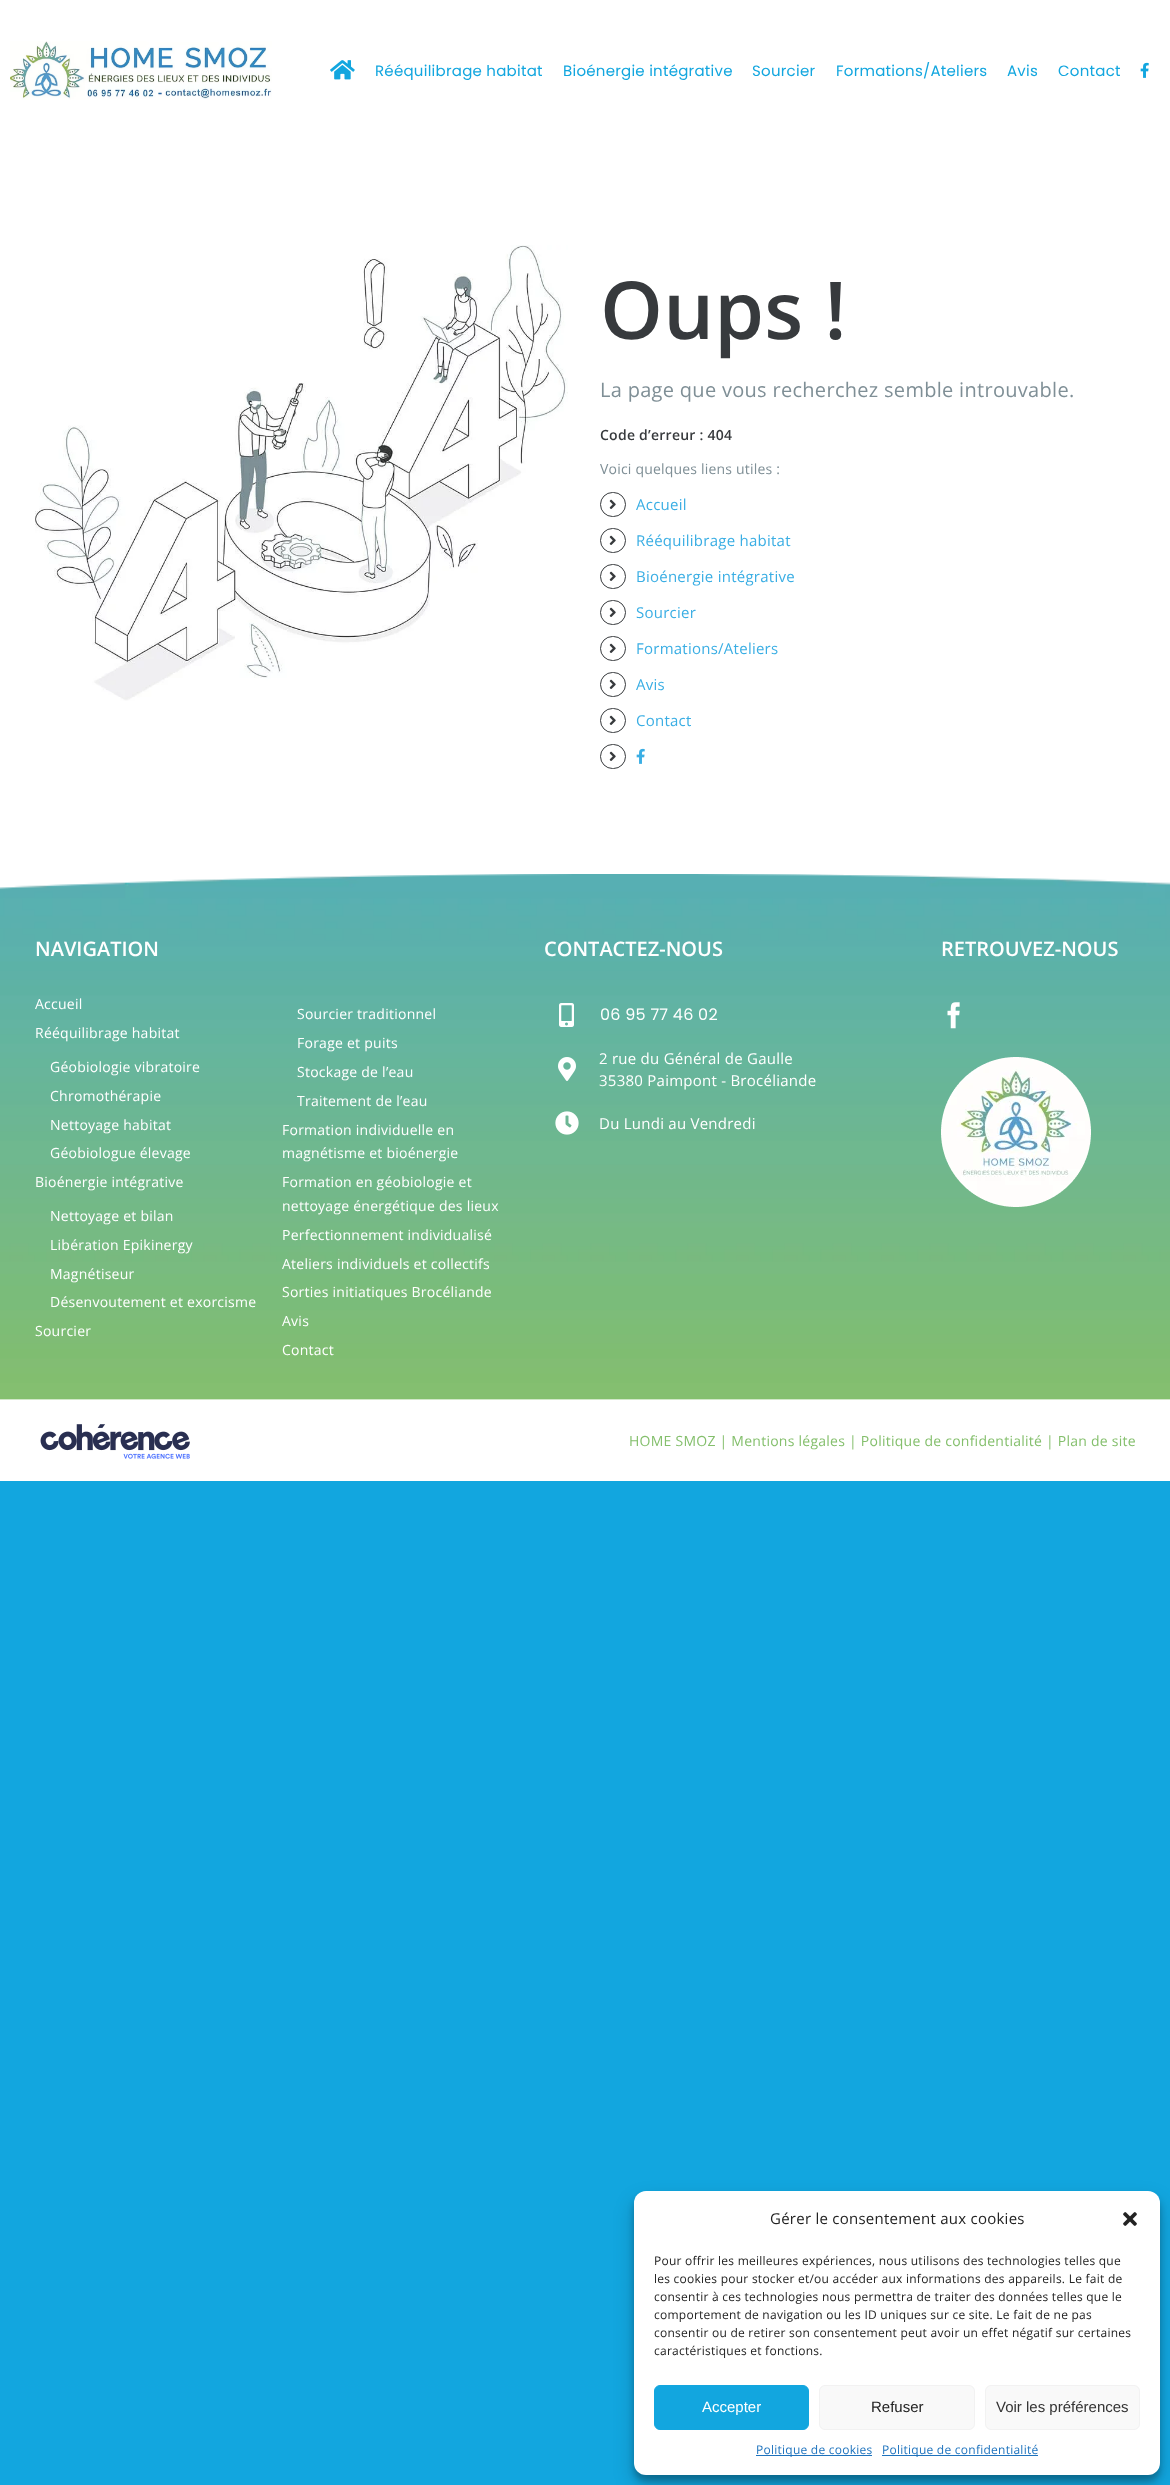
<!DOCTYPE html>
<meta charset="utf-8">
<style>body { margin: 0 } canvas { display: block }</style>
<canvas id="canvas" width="1170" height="2485"></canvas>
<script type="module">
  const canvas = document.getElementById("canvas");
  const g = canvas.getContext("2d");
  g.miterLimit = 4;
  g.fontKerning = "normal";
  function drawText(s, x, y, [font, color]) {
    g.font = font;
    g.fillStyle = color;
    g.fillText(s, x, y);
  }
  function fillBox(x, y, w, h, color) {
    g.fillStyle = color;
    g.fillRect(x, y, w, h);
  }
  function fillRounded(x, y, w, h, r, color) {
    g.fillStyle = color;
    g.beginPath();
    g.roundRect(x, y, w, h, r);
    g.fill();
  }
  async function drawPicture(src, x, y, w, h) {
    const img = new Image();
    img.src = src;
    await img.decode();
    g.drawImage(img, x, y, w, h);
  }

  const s1 = ["15px Poppins", "#12A6DF"];
  const s2 = ["600 80px Open Sans", "#373A3D"];
  const s3 = ["20px Open Sans", "#7F8F96"];
  const s4 = ["600 14px Open Sans", "#373A3D"];
  const s5 = ["14px Open Sans", "#7F8F96"];
  const s6 = ["15px Open Sans", "#3AAEE4"];
  const s7 = ["600 20px Open Sans", "#FFFFFF"];
  const s8 = ["14px Open Sans", "#FFFFFF"];
  const s9 = ["16px Poppins", "#FFFFFF"];
  const s10 = ["15px Open Sans", "#FFFFFF"];
  const s11 = ["14px Open Sans", "#84BF6C"];
  const s12 = ["15px Open Sans", "#222222"];
  const s13 = ["12px Open Sans", "#222222"];
  const s14 = ["15px Liberation Sans", "#FFFFFF"];
  const s15 = ["15px Liberation Sans", "#222222"];
  const s16 = ["15px Liberation Sans", "#333333"];
  const s17 = ["12px Open Sans", "#1E73BE"];

  fillBox(0, 0, 1170, 2485, "#12A6DF");
  fillBox(0, 0, 1170, 1481, "#FFFFFF");
  await drawPicture("pic1.png", 10, 41, 262, 59);
  await drawPicture("pic2.png", 330, 60, 25, 20);
  g.letterSpacing = "0.25px";
  drawText("Rééquilibrage habitat", 375, 76, s1);
  drawText("Bioénergie intégrative", 563, 76, s1);
  drawText("Sourcier", 752, 76, s1);
  drawText("Formations/Ateliers", 836, 76, s1);
  drawText("Avis", 1007, 76, s1);
  drawText("Contact", 1058, 76, s1);
  await drawPicture("pic3.png", 1140, 62, 9, 16);
  await drawPicture("pic4.png", 35, 245, 533, 456);
  drawText("Oups !", 600, 339, s2);
  g.letterSpacing = "0.3px";
  drawText("La page que vous recherchez semble introuvable.", 600, 397, s3);
  g.letterSpacing = "0.25px";
  drawText("Code d’erreur : 404", 600, 440, s4);
  g.letterSpacing = "0.2px";
  drawText("Voici quelques liens utiles :", 600, 474, s5);
  g.beginPath();
  g.roundRect(600.5, 492.5, 25, 24, 12);
  g.strokeStyle = "#373A3D";
  g.stroke();
  await drawPicture("pic5.png", 609, 499, 7, 10);
  g.letterSpacing = "0.25px";
  drawText("Accueil", 636, 510, s6);
  g.beginPath();
  g.roundRect(600.5, 528.5, 25, 24, 12);
  g.stroke();
  await drawPicture("pic5.png", 609, 535, 7, 10);
  drawText("Rééquilibrage habitat", 636, 546, s6);
  g.beginPath();
  g.roundRect(600.5, 564.5, 25, 24, 12);
  g.stroke();
  await drawPicture("pic5.png", 609, 571, 7, 10);
  drawText("Bioénergie intégrative", 636, 582, s6);
  g.beginPath();
  g.roundRect(600.5, 600.5, 25, 24, 12);
  g.stroke();
  await drawPicture("pic5.png", 609, 607, 7, 10);
  drawText("Sourcier", 636, 618, s6);
  g.beginPath();
  g.roundRect(600.5, 636.5, 25, 24, 12);
  g.stroke();
  await drawPicture("pic5.png", 609, 643, 7, 10);
  drawText("Formations/Ateliers", 636, 654, s6);
  g.beginPath();
  g.roundRect(600.5, 672.5, 25, 24, 12);
  g.stroke();
  await drawPicture("pic5.png", 609, 679, 7, 10);
  drawText("Avis", 636, 690, s6);
  g.beginPath();
  g.roundRect(600.5, 708.5, 25, 24, 12);
  g.stroke();
  await drawPicture("pic5.png", 609, 715, 7, 10);
  drawText("Contact", 636, 726, s6);
  g.beginPath();
  g.roundRect(600.5, 744.5, 25, 24, 12);
  g.stroke();
  await drawPicture("pic5.png", 609, 751, 7, 10);
  await drawPicture("pic6.png", 636, 748, 9, 16);
  await drawPicture("pic7.png", 0, 874, 1170, 526);
  g.letterSpacing = "0px";
  drawText("NAVIGATION", 35, 956, s7);
  g.letterSpacing = "0.25px";
  drawText("Accueil", 35, 1009, s8);
  drawText("Sourcier traditionnel", 297, 1019, s8);
  drawText("Forage et puits", 297, 1048, s8);
  drawText("Stockage de l’eau", 297, 1077, s8);
  drawText("Traitement de l’eau", 297, 1106, s8);
  drawText("Sourcier", 35, 1336, s8);
  drawText("Rééquilibrage habitat", 35, 1038, s8);
  drawText("Géobiologie vibratoire", 50, 1072, s8);
  drawText("Chromothérapie", 50, 1101, s8);
  drawText("Nettoyage habitat", 50, 1130, s8);
  drawText("Géobiologue élevage", 50, 1158, s8);
  drawText("Bioénergie intégrative", 35, 1187, s8);
  drawText("Nettoyage et bilan", 50, 1221, s8);
  drawText("Libération Epikinergy", 50, 1250, s8);
  drawText("Magnétiseur", 50, 1279, s8);
  drawText("Désenvoutement et exorcisme", 50, 1307, s8);
  drawText("Formation individuelle en", 282, 1135, s8);
  drawText("magnétisme et bioénergie", 282, 1158, s8);
  drawText("Formation en géobiologie et", 282, 1187, s8);
  drawText("nettoyage énergétique des lieux", 282, 1211, s8);
  drawText("Perfectionnement individualisé", 282, 1240, s8);
  drawText("Ateliers individuels et collectifs", 282, 1269, s8);
  drawText("Sorties initiatiques Brocéliande", 282, 1297, s8);
  drawText("Avis", 282, 1326, s8);
  drawText("Contact", 282, 1355, s8);
  g.letterSpacing = "0px";
  drawText("CONTACTEZ-NOUS", 544, 956, s7);
  await drawPicture("pic8.png", 559, 1003, 15, 24);
  g.letterSpacing = "0.25px";
  drawText("06 95 77 46 02", 600, 1020, s9);
  await drawPicture("pic9.png", 558, 1057, 18, 24);
  drawText("2 rue du Général de Gaulle", 599, 1064, s10);
  drawText("35380 Paimpont - Brocéliande", 599, 1086, s10);
  await drawPicture("pic10.png", 555, 1111, 24, 24);
  drawText("Du Lundi au Vendredi", 599, 1129, s10);
  g.letterSpacing = "0px";
  drawText("RETROUVEZ-NOUS", 941, 956, s7);
  await drawPicture("pic11.png", 947, 1002, 13, 27);
  await drawPicture("pic12.png", 941, 1057, 150, 150);
  await drawPicture("pic13.png", 40, 1424, 150, 35);
  g.letterSpacing = "0.25px";
  drawText("HOME SMOZ | Mentions légales | Politique de confidentialité | Plan de site", 629, 1446, s11);
  g.fillStyle = "rgba(0, 0, 0, 0.23)";
  g.filter = "blur(3px)";
  g.beginPath();
  g.roundRect(634, 2197, 526, 284, 12);
  g.fill();
  g.filter = "none";
  g.fillStyle = "rgba(0, 0, 0, 0.19)";
  g.filter = "blur(10px)";
  g.beginPath();
  g.roundRect(634, 2201, 526, 284, 12);
  g.fill();
  g.filter = "none";
  fillRounded(634, 2191, 526, 284, 12, "#FFFFFF");
  drawText("Gérer le consentement aux cookies", 770, 2224, s12);
  await drawPicture("pic14.png", 1123, 2212, 14, 14);
  drawText("Pour offrir les meilleures expériences, nous utilisons des technologies telles que", 654, 2265, s13);
  drawText("les cookies pour stocker et/ou accéder aux informations des appareils. Le fait de", 654, 2283, s13);
  drawText("consentir à ces technologies nous permettra de traiter des données telles que le", 654, 2301, s13);
  drawText("comportement de navigation ou les ID uniques sur ce site. Le fait de ne pas", 654, 2319, s13);
  drawText("consentir ou de retirer son consentement peut avoir un effet négatif sur certaines", 654, 2337, s13);
  drawText("caractéristiques et fonctions.", 654, 2355, s13);
  g.fillStyle = "#12A6DF";
  g.beginPath();
  g.roundRect(654.5, 2385.5, 154, 44, 5.5);
  g.fill();
  g.strokeStyle = "#12A6DF";
  g.stroke();
  g.letterSpacing = "0px";
  drawText("Accepter", 702, 2412, s14);
  g.fillStyle = "#F9F9F9";
  g.beginPath();
  g.roundRect(819.5, 2385.5, 155, 44, 5.5);
  g.fill();
  g.strokeStyle = "#F2F2F2";
  g.stroke();
  drawText("Refuser", 871, 2412, s15);
  g.fillStyle = "#F9F9F9";
  g.beginPath();
  g.roundRect(985.5, 2385.5, 154, 44, 5.5);
  g.fill();
  g.stroke();
  drawText("Voir les préférences", 996, 2412, s16);
  fillBox(756, 2455, 116, 1, "#1E73BE");
  g.letterSpacing = "0.25px";
  drawText("Politique de cookies", 756, 2454, s17);
  fillBox(882, 2455, 156, 1, "#1E73BE");
  drawText("Politique de confidentialité", 882, 2454, s17);
</script>
